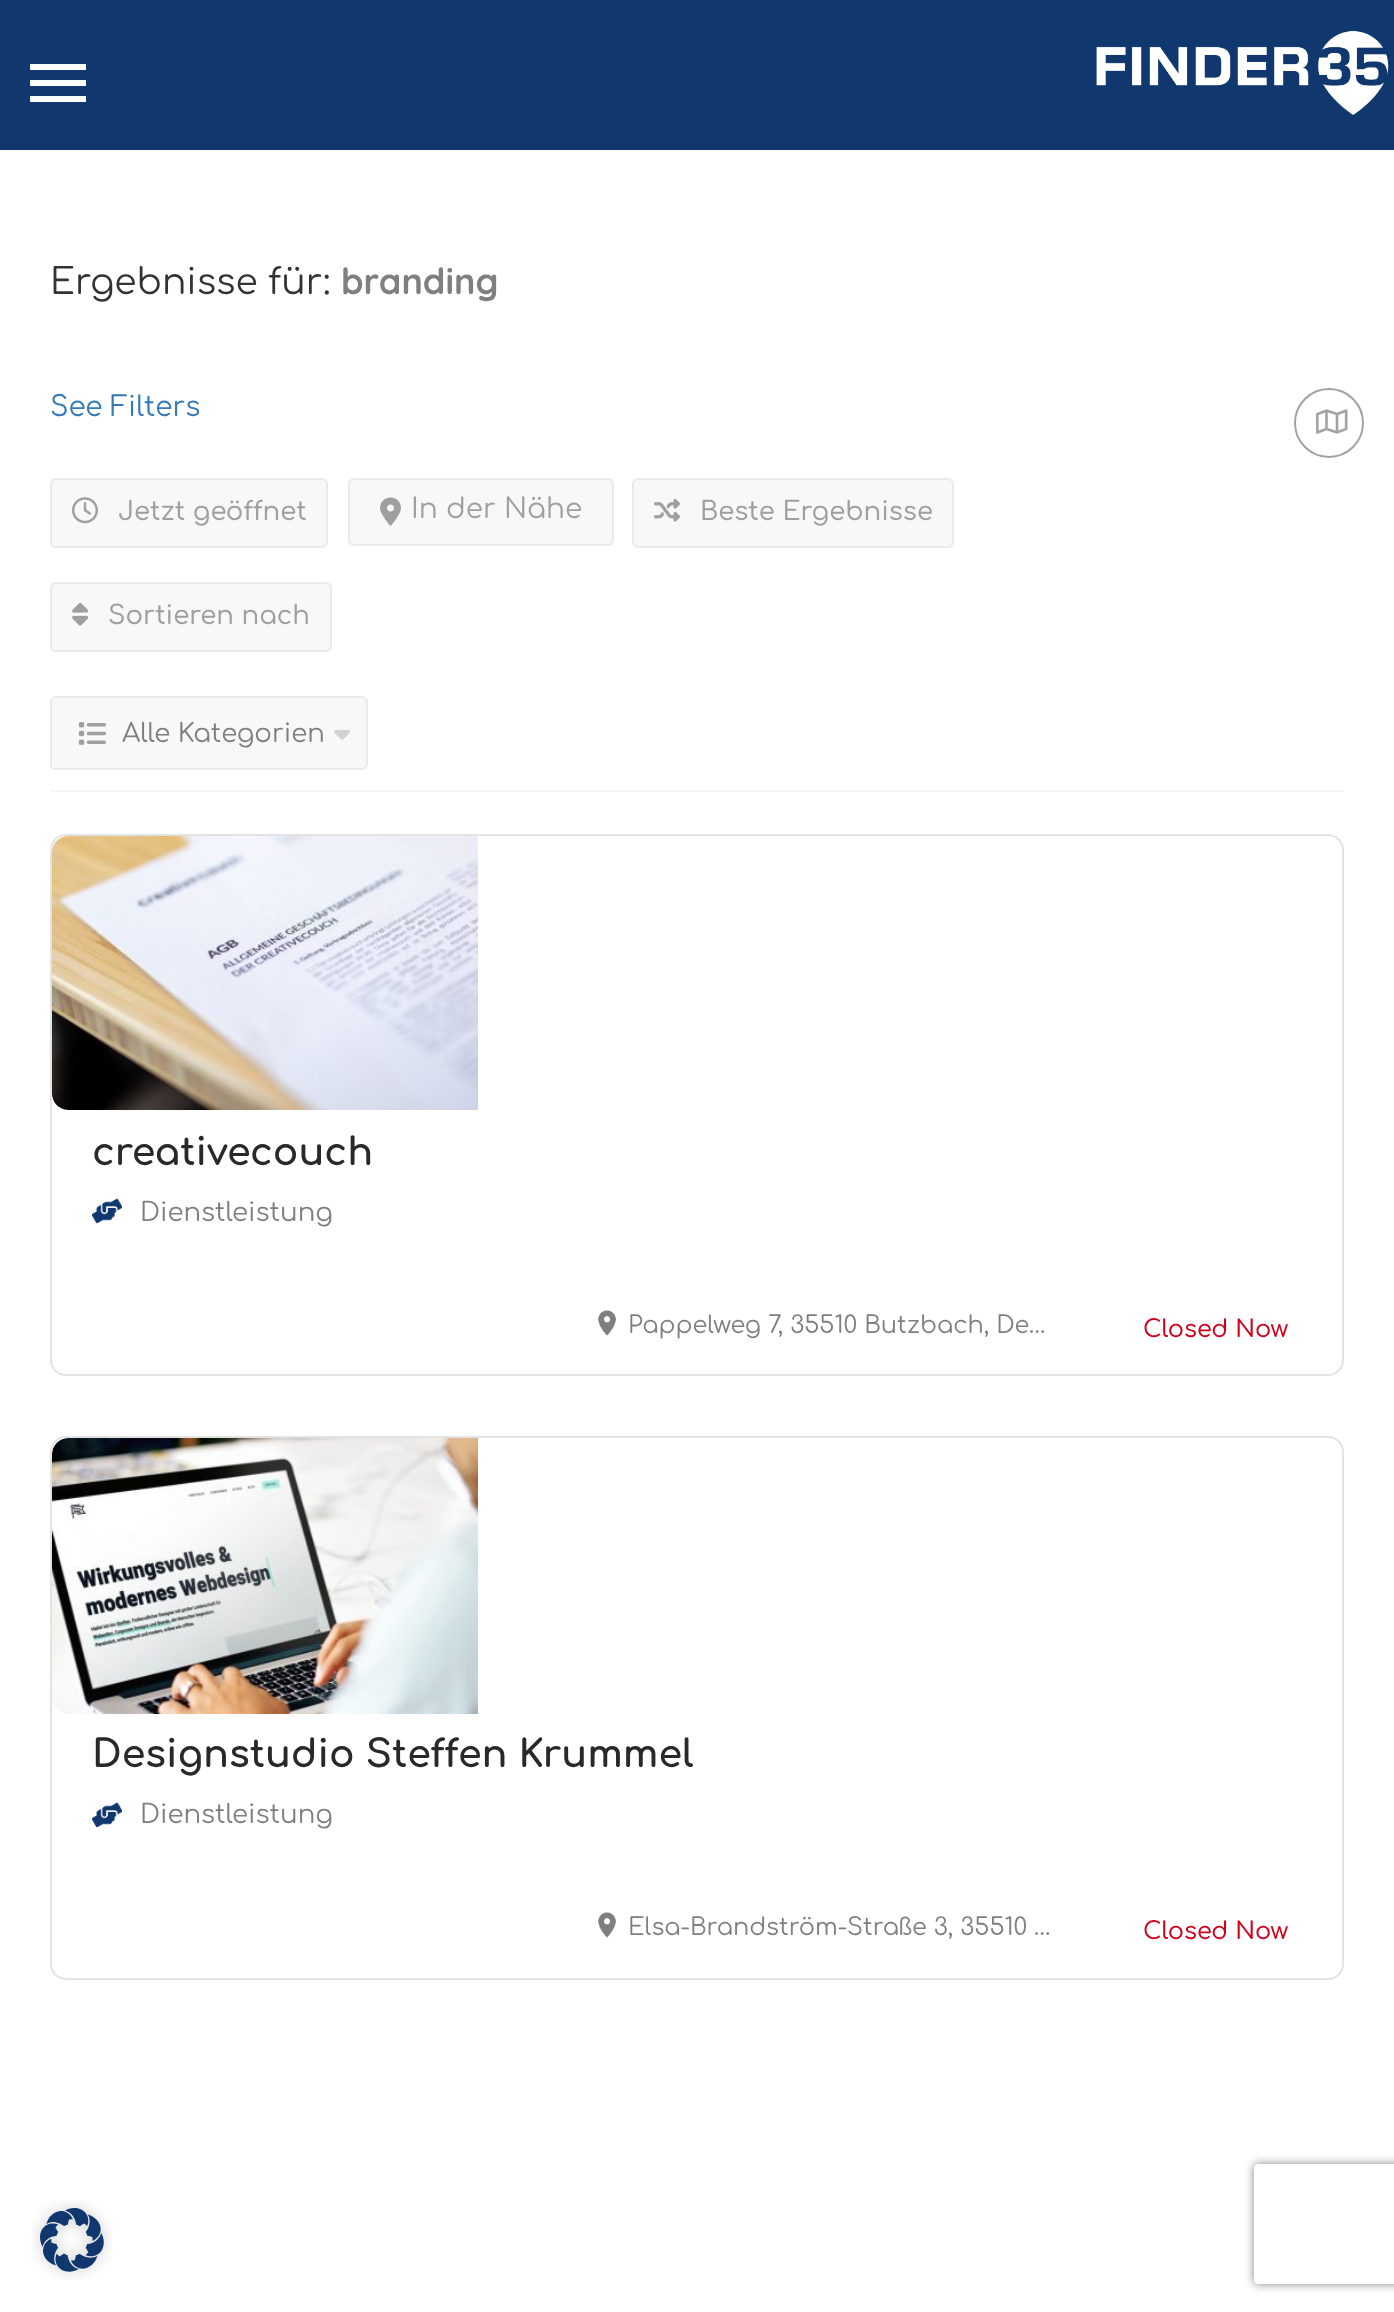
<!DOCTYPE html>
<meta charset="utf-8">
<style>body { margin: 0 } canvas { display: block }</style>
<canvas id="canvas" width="1394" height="2312"></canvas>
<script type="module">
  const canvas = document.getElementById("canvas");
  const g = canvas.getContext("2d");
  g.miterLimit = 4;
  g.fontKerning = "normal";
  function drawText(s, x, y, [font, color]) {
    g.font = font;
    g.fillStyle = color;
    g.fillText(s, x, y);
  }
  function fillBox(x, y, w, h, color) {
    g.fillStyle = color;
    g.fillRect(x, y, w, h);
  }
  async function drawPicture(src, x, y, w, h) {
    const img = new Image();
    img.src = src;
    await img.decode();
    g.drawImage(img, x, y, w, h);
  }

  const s1 = ["36px Comfortaa", "#333333"];
  const s2 = ["300 36px Quicksand", "#7F7F7F"];
  const s3 = ["28px Comfortaa", "#337AB7"];
  const s4 = ["500 26px Comfortaa", "#9F9F9F"];
  const s5 = ["28px Comfortaa", "#9F9F9F"];
  const s6 = ["26px Comfortaa", "#7F7F7F"];
  const s7 = ["bold 38px Comfortaa", "#292929"];
  const s8 = ["24px Comfortaa", "#7F7F7F"];
  const s9 = ["500 24px Comfortaa", "#D0021B"];

  fillBox(0, 0, 1394, 2312, "#FFFFFF");
  fillBox(0, 0, 1394, 150, "#10376E");
  fillBox(30, 64, 56, 6, "#FFFFFF");
  fillBox(30, 80, 56, 6, "#FFFFFF");
  fillBox(30, 96, 56, 6, "#FFFFFF");
  await drawPicture("pic1.png", 1096, 30, 293, 85);
  drawText("Ergebnisse für:", 50, 294, s1);
  drawText("branding", 341, 294, s2);
  fillBox(50, 790, 1294, 2, "#F6F6F6");
  drawText("See Filters", 50, 416, s3);
  g.beginPath();
  g.arc(1329, 423, 34, 0, Math.PI * 2);
  g.strokeStyle = "#A3A3A3";
  g.lineWidth = 2;
  g.stroke();
  await drawPicture("pic2.png", 1316, 409, 32, 25);
  g.fillStyle = "#F8F8F8";
  g.beginPath();
  g.roundRect(51, 479, 276, 68, 5);
  g.fill();
  g.strokeStyle = "#EAEAEA";
  g.stroke();
  await drawPicture("pic3.png", 72, 497, 26, 27);
  drawText("Jetzt geöffnet", 118, 520, s4);
  g.fillStyle = "#F8F8F8";
  g.beginPath();
  g.roundRect(349, 479, 264, 66, 5);
  g.fill();
  g.stroke();
  await drawPicture("pic4.png", 380, 497, 21, 29);
  drawText("In der Nähe", 411, 518, s5);
  g.fillStyle = "#F8F8F8";
  g.beginPath();
  g.roundRect(633, 479, 320, 68, 5);
  g.fill();
  g.stroke();
  await drawPicture("pic5.png", 654, 498, 26, 24);
  drawText("Beste Ergebnisse", 700, 520, s4);
  g.fillStyle = "#F8F8F8";
  g.beginPath();
  g.roundRect(51, 583, 280, 68, 5);
  g.fill();
  g.stroke();
  await drawPicture("pic6.png", 72, 602, 17, 24);
  drawText("Sortieren nach", 108, 624, s4);
  g.fillStyle = "#F8F8F8";
  g.beginPath();
  g.roundRect(51, 697, 316, 72, 5);
  g.fill();
  g.stroke();
  fillBox(52, 698, 3, 70, "#F8F8F8");
  await drawPicture("pic7.png", 78, 722, 28, 23);
  drawText("Alle Kategorien", 122, 742, s6);
  await drawPicture("pic8.png", 334, 730, 16, 10);
  g.beginPath();
  g.roundRect(51, 835, 1292, 540, 15);
  g.strokeStyle = "#E3E3E3";
  g.stroke();
  await drawPicture("pic9.png", 52, 836, 426, 274);
  drawText("creativecouch", 92, 1165, s7);
  await drawPicture("pic10.png", 92, 1198, 30, 26);
  drawText("Dienstleistung", 140, 1221, s6);
  await drawPicture("pic11.png", 598, 1310, 18, 26);
  drawText("Pappelweg 7, 35510 Butzbach, De…", 628, 1333, s8);
  drawText("Closed Now", 1143, 1337, s9);
  g.beginPath();
  g.roundRect(51, 1437, 1292, 542, 15);
  g.stroke();
  await drawPicture("pic12.png", 52, 1438, 426, 276);
  drawText("Designstudio Steffen Krummel", 92, 1767, s7);
  await drawPicture("pic13.png", 92, 1802, 30, 26);
  drawText("Dienstleistung", 140, 1823, s6);
  await drawPicture("pic11.png", 598, 1912, 18, 26);
  drawText("Elsa-Brandström-Straße 3, 35510 …", 628, 1935, s8);
  drawText("Closed Now", 1143, 1939, s9);
  await drawPicture("pic14.png", 32, 2200, 80, 80);
  g.save();
  g.beginPath();
  g.moveTo(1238, 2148);
  g.lineTo(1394, 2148);
  g.lineTo(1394, 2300);
  g.lineTo(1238, 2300);
  g.closePath();
  g.moveTo(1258, 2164);
  g.lineTo(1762, 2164);
  g.bezierCurveTo(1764, 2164, 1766, 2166, 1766, 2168);
  g.lineTo(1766, 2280);
  g.bezierCurveTo(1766, 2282, 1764, 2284, 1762, 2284);
  g.lineTo(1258, 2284);
  g.bezierCurveTo(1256, 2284, 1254, 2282, 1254, 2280);
  g.lineTo(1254, 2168);
  g.bezierCurveTo(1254, 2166, 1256, 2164, 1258, 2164);
  g.closePath();
  g.clip("evenodd");
  g.fillStyle = "#808080";
  g.filter = "blur(5px)";
  g.beginPath();
  g.roundRect(1254, 2164, 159, 120, 4);
  g.fill();
  g.filter = "none";
  g.restore();
</script>
